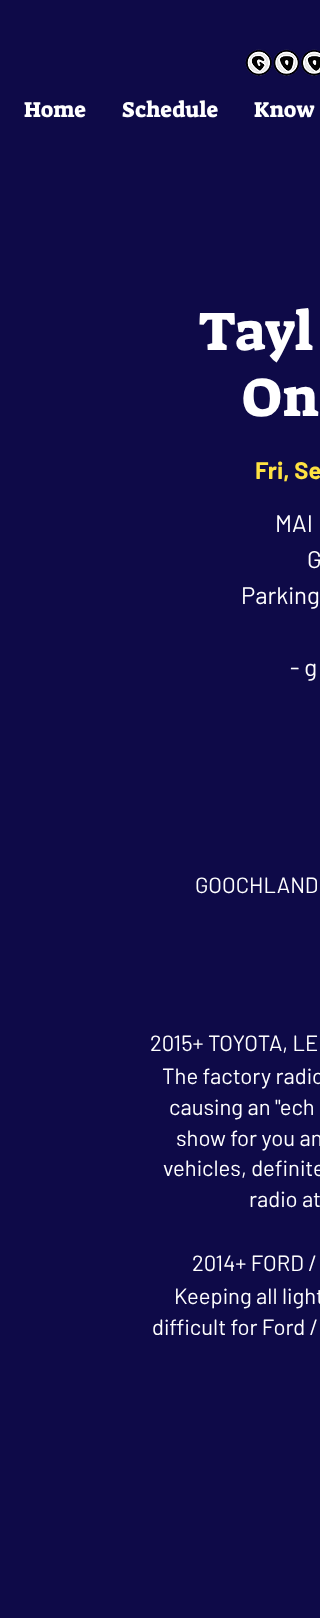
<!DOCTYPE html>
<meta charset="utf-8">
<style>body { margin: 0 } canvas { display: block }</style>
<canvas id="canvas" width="320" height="1618"></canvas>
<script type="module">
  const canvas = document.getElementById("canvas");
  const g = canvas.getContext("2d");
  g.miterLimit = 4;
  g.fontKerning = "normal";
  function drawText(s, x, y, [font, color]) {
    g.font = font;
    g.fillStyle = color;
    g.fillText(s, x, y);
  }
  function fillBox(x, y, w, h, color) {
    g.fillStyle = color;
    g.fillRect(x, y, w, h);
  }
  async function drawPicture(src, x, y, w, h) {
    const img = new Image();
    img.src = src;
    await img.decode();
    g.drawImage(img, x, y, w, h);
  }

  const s1 = ["22px Suez One", "#FFFFFF"];
  const s2 = ["55px Suez One", "#FFFFFF"];
  const s3 = ["bold 24px Barlow", "#FEE142"];
  const s4 = ["24px Barlow", "#FFFFFF"];
  const s5 = ["22px Barlow", "#FFFFFF"];

  fillBox(0, 0, 320, 1618, "#0E0A48");
  await drawPicture("pic1.png", 245, 49, 75, 27);
  drawText("Home", 24, 117, s1);
  drawText("Schedule", 122, 117, s1);
  drawText("Know", 254, 117, s1);
  drawText("Tayl", 198, 350, s2);
  drawText("On", 242, 416, s2);
  drawText("Fri, Se", 255, 479, s3);
  drawText("MAI", 275, 532, s4);
  drawText("G", 307, 568, s4);
  drawText("Parking", 241, 604, s4);
  drawText("- g", 290, 676, s4);
  drawText("GOOCHLAND", 195, 893, s5);
  drawText("2015+ TOYOTA, LE", 150, 1051, s5);
  drawText("The factory radio", 162, 1084, s5);
  drawText("causing an \"ech", 169, 1115, s5);
  drawText("show for you an", 176, 1146, s5);
  drawText("vehicles, definite", 163, 1176, s5);
  drawText("radio at", 249, 1207, s5);
  drawText("2014+ FORD /", 192, 1271, s5);
  drawText("Keeping all light", 174, 1304, s5);
  g.save();
  g.beginPath();
  g.rect(148, 1027, 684, 308);
  g.clip();
  drawText("difficult for Ford /", 152, 1335, s5);
  g.restore();
</script>
